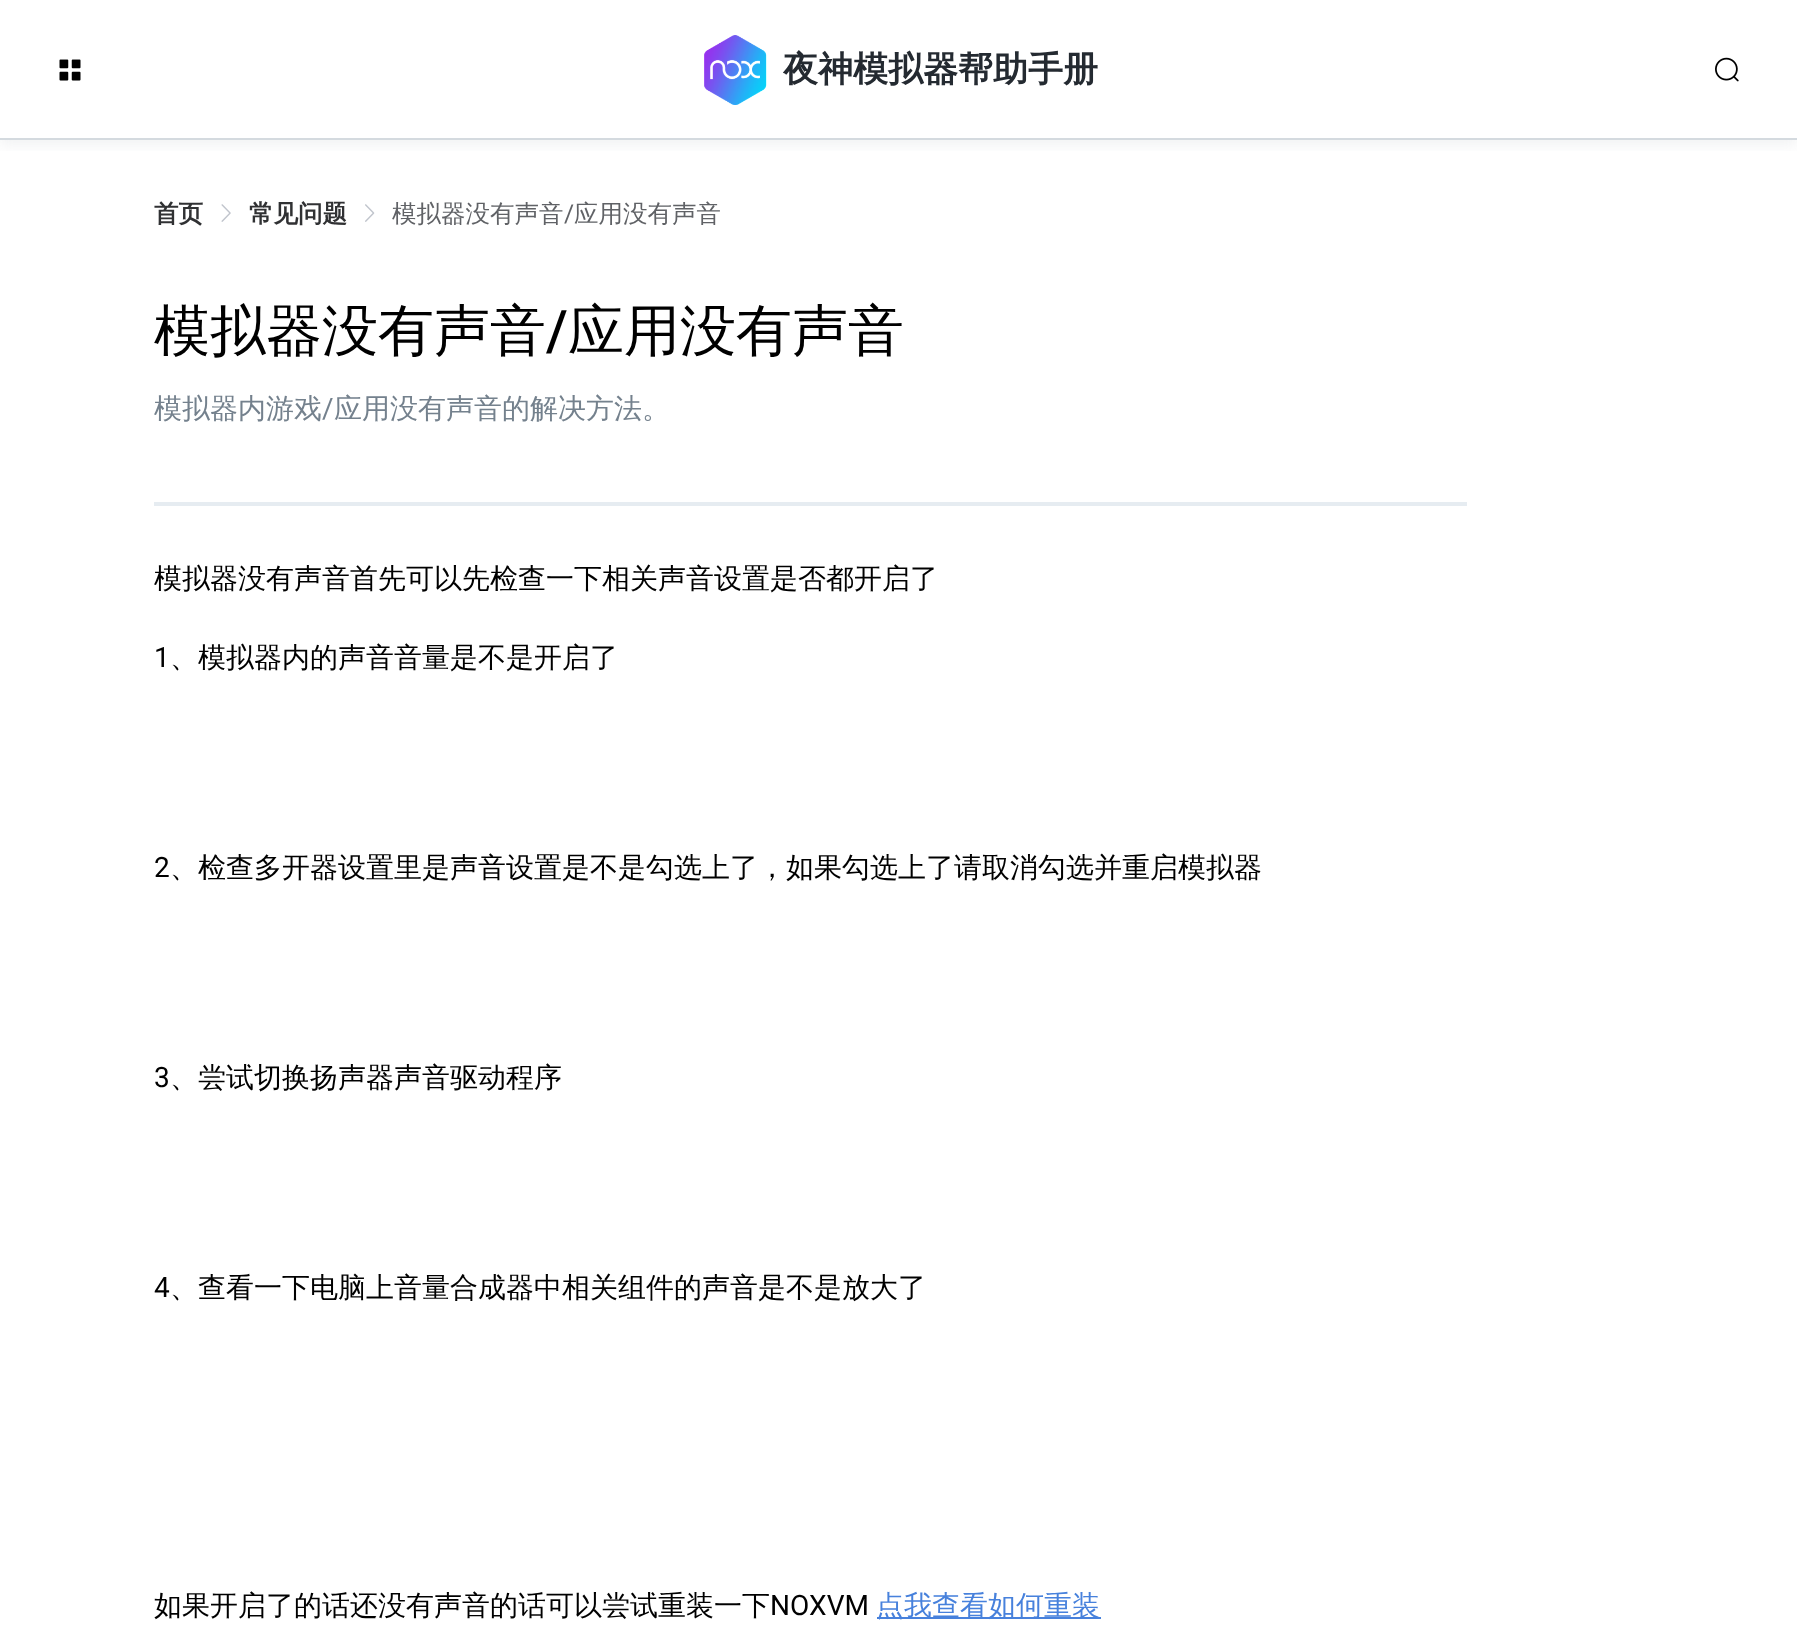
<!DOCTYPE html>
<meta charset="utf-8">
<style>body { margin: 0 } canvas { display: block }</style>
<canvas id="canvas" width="1797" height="1628"></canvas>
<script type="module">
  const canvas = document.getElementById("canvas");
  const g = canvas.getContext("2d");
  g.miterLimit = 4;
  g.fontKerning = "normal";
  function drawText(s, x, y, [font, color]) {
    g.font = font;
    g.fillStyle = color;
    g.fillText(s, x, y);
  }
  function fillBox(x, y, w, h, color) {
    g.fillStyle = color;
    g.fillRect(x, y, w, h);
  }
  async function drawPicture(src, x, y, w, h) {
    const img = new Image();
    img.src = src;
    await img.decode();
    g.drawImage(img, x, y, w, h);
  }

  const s1 = ["bold 35px WenQuanYi Zen Hei", "#242A31"];
  const s2 = ["bold 24.5px WenQuanYi Zen Hei", "#303133"];
  const s3 = ["500 24.5px WenQuanYi Zen Hei", "#606266"];
  const s4 = ["24.5px Roboto", "#606266"];
  const s5 = ["500 56px WenQuanYi Zen Hei", "#000000"];
  const s6 = ["500 56px Roboto", "#000000"];
  const s7 = ["500 28px WenQuanYi Zen Hei", "#74818D"];
  const s8 = ["28px Roboto", "#74818D"];
  const s9 = ["500 28px WenQuanYi Zen Hei", "#000000"];
  const s10 = ["28px Roboto", "#000000"];
  const s11 = ["500 28px WenQuanYi Zen Hei", "#4781DC"];

  fillBox(0, 0, 1797, 1628, "#FFFFFF");
  g.save();
  g.beginPath();
  g.rect(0, 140, 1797, 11);
  g.clip();
  g.fillStyle = "rgba(116, 129, 141, 0.1)";
  g.filter = "blur(7px)";
  g.beginPath();
  g.rect(0, 5, 1797, 140);
  g.fill();
  g.filter = "none";
  g.restore();
  fillBox(0, 138, 1797, 2, "#D4DADF");
  await drawPicture("pic1.png", 59, 59, 22, 22);
  await drawPicture("pic2.png", 704, 35, 63, 70);
  drawText("夜神模拟器帮助手册", 783, 81, s1);
  await drawPicture("pic3.png", 1715, 57, 24, 25);
  drawText("首页", 154, 222, s2);
  await drawPicture("pic4.png", 221, 204, 10, 18);
  drawText("常见问题", 249, 222, s2);
  await drawPicture("pic5.png", 365, 204, 10, 18);
  drawText("模拟器没有声音", 392, 222, s3);
  drawText("/", 564, 222, s4);
  drawText("应用没有声音", 574, 222, s3);
  fillBox(154, 502, 1313, 4, "#E6ECF1");
  drawText("模拟器没有声音", 154, 350, s5);
  drawText("/", 546, 350, s6);
  drawText("应用没有声音", 568, 350, s5);
  drawText("模拟器内游戏", 154, 418, s7);
  drawText("/", 322, 418, s8);
  drawText("应用没有声音的解决方法。", 334, 418, s7);
  drawText("模拟器没有声音首先可以先检查一下相关声音设置是否都开启了", 154, 588, s9);
  drawText("1", 154, 667, s10);
  drawText("、模拟器内的声音音量是不是开启了", 170, 667, s9);
  drawText("2", 154, 877, s10);
  drawText("、检查多开器设置里是声音设置是不是勾选上了，如果勾选上了请取消勾选并重启模拟器", 170, 877, s9);
  drawText("3", 154, 1087, s10);
  drawText("、尝试切换扬声器声音驱动程序", 170, 1087, s9);
  drawText("4", 154, 1297, s10);
  drawText("、查看一下电脑上音量合成器中相关组件的声音是不是放大了", 170, 1297, s9);
  drawText("如果开启了的话还没有声音的话可以尝试重装一下", 154, 1615, s9);
  drawText("NOXVM", 770, 1615, s10);
  fillBox(877, 1617, 224, 2, "#4781DC");
  drawText("点我查看如何重装", 876, 1615, s11);
</script>
